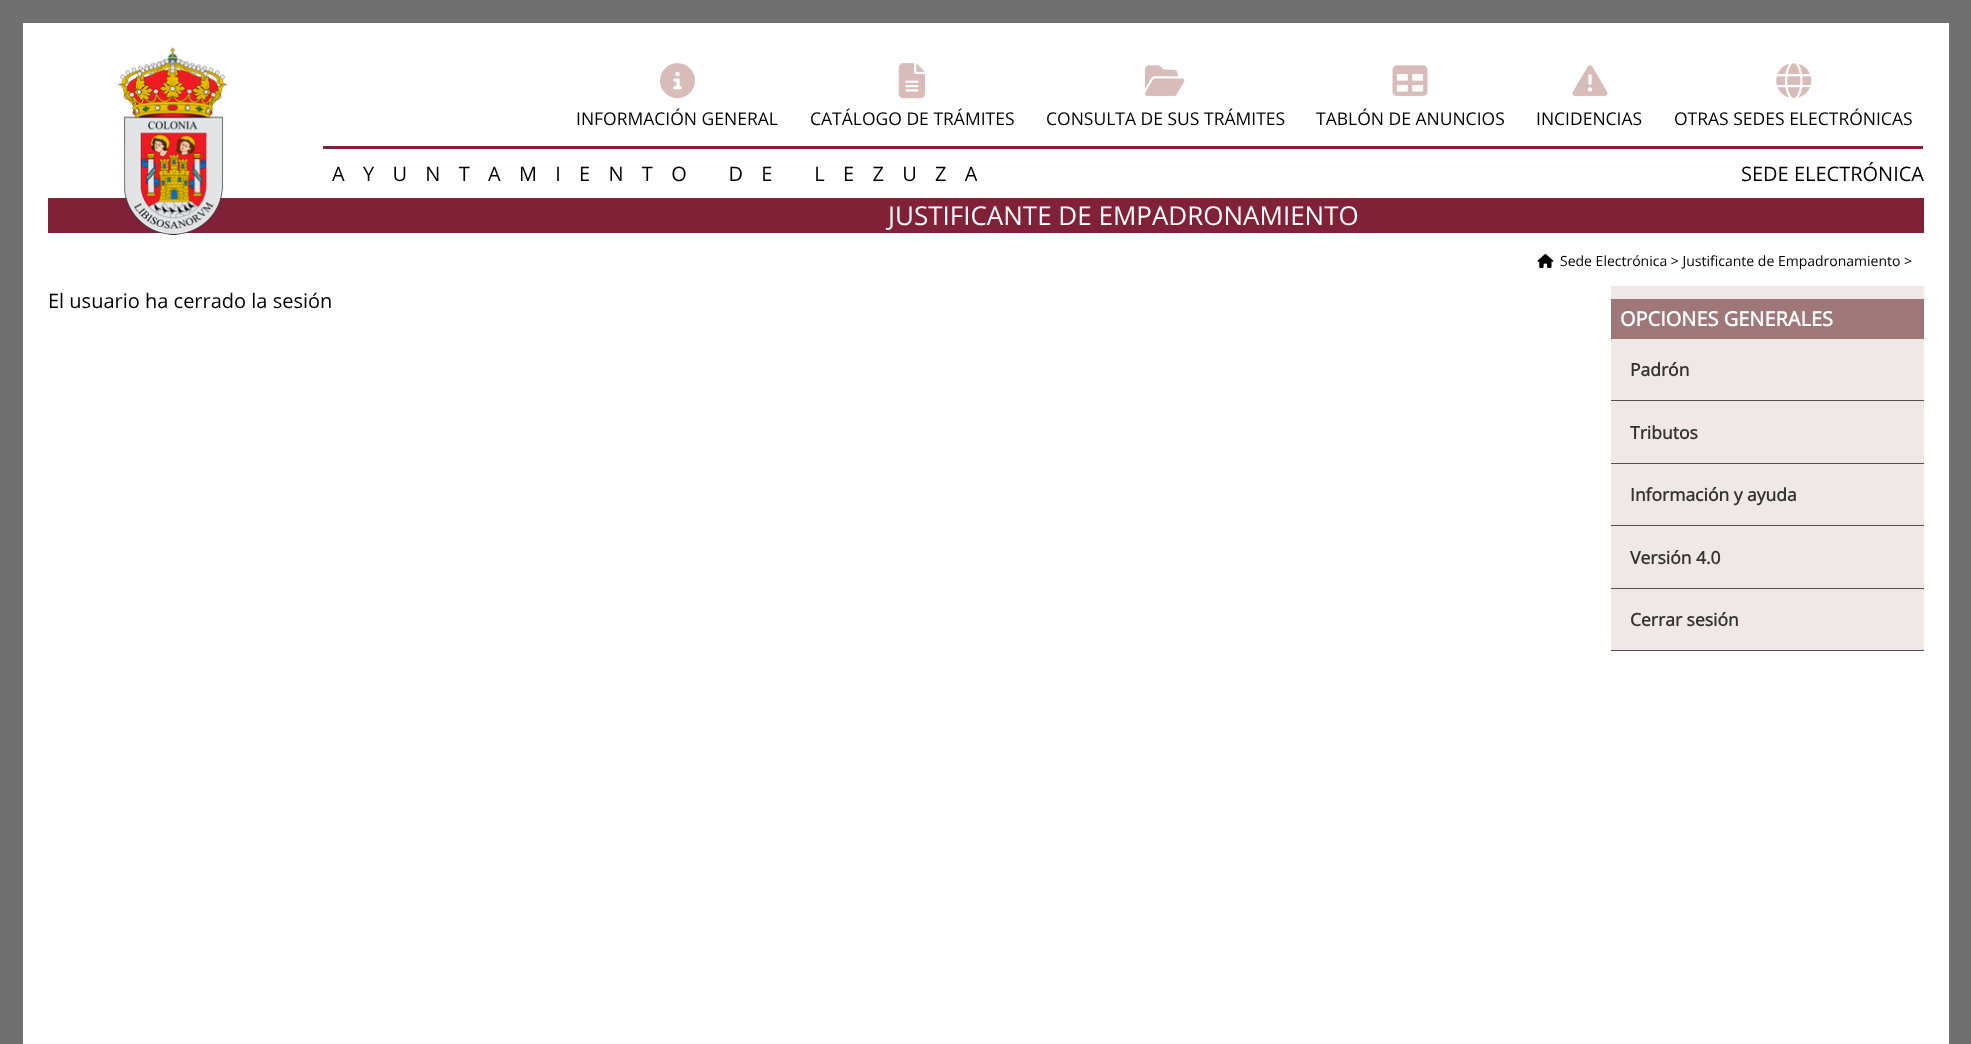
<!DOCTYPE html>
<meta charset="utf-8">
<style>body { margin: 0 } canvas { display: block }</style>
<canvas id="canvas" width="1971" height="1044"></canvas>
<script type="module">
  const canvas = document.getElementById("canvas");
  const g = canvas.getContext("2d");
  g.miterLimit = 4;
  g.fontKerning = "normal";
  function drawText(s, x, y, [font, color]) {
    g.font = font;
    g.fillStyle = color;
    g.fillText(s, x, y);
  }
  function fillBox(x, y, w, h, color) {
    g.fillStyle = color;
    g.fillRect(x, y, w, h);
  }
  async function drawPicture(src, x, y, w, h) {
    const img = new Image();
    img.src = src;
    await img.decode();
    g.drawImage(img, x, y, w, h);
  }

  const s1 = ["17.5px Open Sans", "#000000"];
  const s2 = ["20px Open Sans", "#000000"];
  const s3 = ["26px Open Sans", "#FFFFFF"];
  const s4 = ["14px Open Sans", "#000000"];
  const s5 = ["bold 20px Open Sans", "#FFFFFF"];
  const s6 = ["bold 17.5px Open Sans", "#333333"];

  fillBox(0, 0, 1971, 1044, "#707070");
  fillBox(23, 23, 1926, 1021, "#FFFFFF");
  fillBox(323, 146, 1600, 3, "#812138");
  await drawPicture("pic1.png", 660, 63, 35, 36);
  drawText("INFORMACIÓN GENERAL", 576, 125, s1);
  await drawPicture("pic2.png", 898, 63, 27, 36);
  drawText("CATÁLOGO DE TRÁMITES", 810, 125, s1);
  await drawPicture("pic3.png", 1145, 65, 40, 31);
  drawText("CONSULTA DE SUS TRÁMITES", 1046, 125, s1);
  await drawPicture("pic4.png", 1392, 65, 36, 31);
  drawText("TABLÓN DE ANUNCIOS", 1316, 125, s1);
  await drawPicture("pic5.png", 1572, 65, 36, 31);
  drawText("INCIDENCIAS", 1536, 125, s1);
  await drawPicture("pic6.png", 1776, 63, 36, 35);
  drawText("OTRAS SEDES ELECTRÓNICAS", 1674, 125, s1);
  fillBox(48, 198, 1876, 35, "#812138");
  await drawPicture("pic7.png", 118, 47, 109, 188);
  g.letterSpacing = "18.3px";
  drawText("AYUNTAMIENTO DE LEZUZA", 332, 181, s2);
  g.letterSpacing = "0px";
  drawText("SEDE ELECTRÓNICA", 1741, 181, s2);
  drawText("JUSTIFICANTE DE EMPADRONAMIENTO", 888, 225, s3);
  await drawPicture("pic8.png", 1537, 254, 17, 14);
  drawText("Sede Electrónica > Justificante de Empadronamiento >", 1560, 266, s4);
  drawText("El usuario ha cerrado la sesión", 48, 308, s2);
  fillBox(1611, 286, 313, 364, "#EFE8E7");
  fillBox(1611, 299, 313, 40, "#9F7778");
  drawText("OPCIONES GENERALES", 1620, 326, s5);
  fillBox(1611, 400, 313, 1, "#505050");
  drawText("Padrón", 1630, 376, s6);
  fillBox(1611, 463, 313, 1, "#505050");
  drawText("Tributos", 1630, 439, s6);
  fillBox(1611, 525, 313, 1, "#505050");
  drawText("Información y ayuda", 1630, 501, s6);
  fillBox(1611, 588, 313, 1, "#505050");
  drawText("Versión 4.0", 1630, 564, s6);
  fillBox(1611, 650, 313, 1, "#505050");
  drawText("Cerrar sesión", 1630, 626, s6);
</script>
